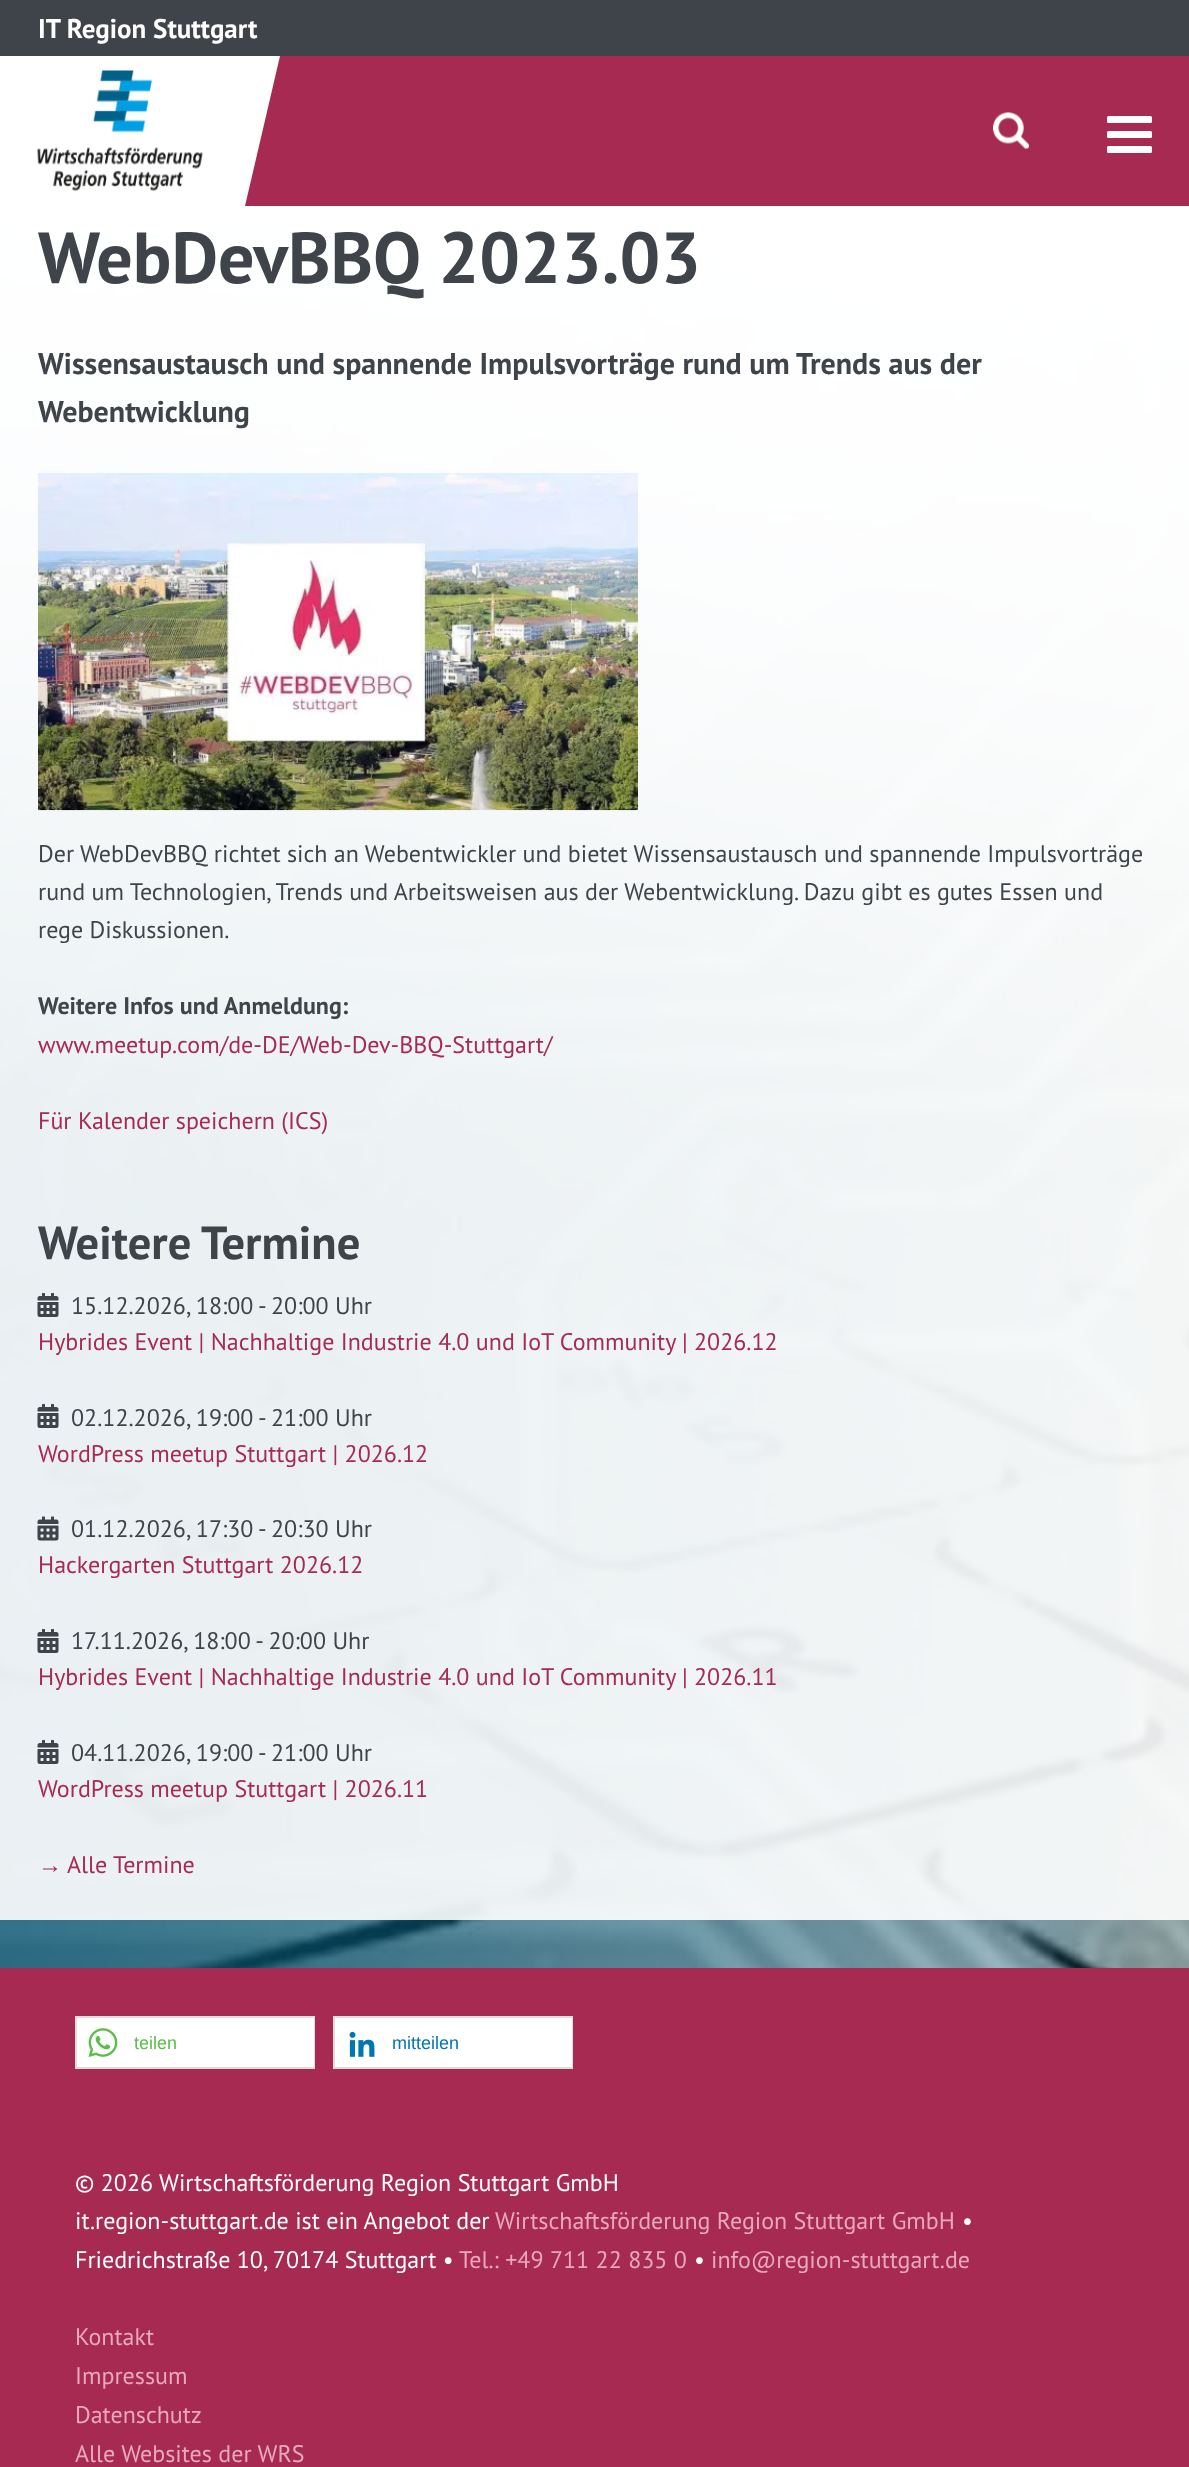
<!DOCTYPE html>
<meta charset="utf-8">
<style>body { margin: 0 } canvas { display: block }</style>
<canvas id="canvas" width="1189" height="2467"></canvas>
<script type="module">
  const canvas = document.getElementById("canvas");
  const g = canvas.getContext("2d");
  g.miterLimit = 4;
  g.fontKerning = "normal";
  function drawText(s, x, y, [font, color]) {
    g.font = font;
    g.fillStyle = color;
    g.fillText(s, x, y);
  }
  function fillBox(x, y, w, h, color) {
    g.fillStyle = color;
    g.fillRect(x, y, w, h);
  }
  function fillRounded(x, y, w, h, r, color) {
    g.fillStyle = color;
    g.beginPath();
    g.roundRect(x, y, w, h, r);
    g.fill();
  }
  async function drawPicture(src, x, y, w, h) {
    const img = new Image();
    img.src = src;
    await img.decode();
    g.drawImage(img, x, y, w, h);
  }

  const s1 = ["bold 27px PT Sans", "#FFFFFF"];
  const s2 = ["bold 72px PT Sans", "#3F444A"];
  const s3 = ["bold 30px PT Sans", "#3F444A"];
  const s4 = ["24px PT Sans", "#3F444A"];
  const s5 = ["bold 24px PT Sans", "#3F444A"];
  const s6 = ["24px PT Sans", "#A62A52"];
  const s7 = ["bold 46.5px PT Sans", "#3F444A"];
  const s8 = ["24px Liberation Sans", "#A62A52"];
  const s9 = ["18px Liberation Sans", "#5CBE4A"];
  const s10 = ["18px Liberation Sans", "#0077B5"];
  const s11 = ["24px PT Sans", "#FFFFFF"];
  const s12 = ["24px PT Sans", "#E9A9BD"];

  fillBox(0, 0, 1189, 2467, "#A62A52");
  fillBox(0, 0, 1189, 56, "#3F444A");
  drawText("IT Region Stuttgart", 38, 38, s1);
  fillBox(0, 56, 235, 150, "#FFFFFF");
  await drawPicture("pic1.png", 37, 70, 166, 121);
  g.beginPath();
  g.moveTo(235, 56);
  g.lineTo(280, 56);
  g.lineTo(245, 206);
  g.lineTo(200, 206);
  g.closePath();
  g.fill();
  await drawPicture("pic2.png", 993, 112, 36, 37);
  fillRounded(1107, 131, 45, 7, 1.5, "#FFFFFF");
  fillRounded(1107, 116, 45, 7, 1.5, "#FFFFFF");
  fillRounded(1107, 146, 45, 7, 1.5, "#FFFFFF");
  await drawPicture("pic3.png", 0, 206, 1189, 1762);
  fillBox(0, 206, 1189, 1714, "rgba(255, 255, 255, 0.9)");
  drawText("WebDevBBQ 2023.03", 38, 283, s2);
  drawText("Wissensaustausch und spannende Impulsvorträge rund um Trends aus der", 38, 374, s3);
  drawText("Webentwicklung", 38, 422, s3);
  await drawPicture("pic4.png", 38, 473, 600, 338);
  drawText("Der WebDevBBQ richtet sich an Webentwickler und bietet Wissensaustausch und spannende Impulsvorträge", 38, 862, s4);
  drawText("rund um Technologien, Trends und Arbeitsweisen aus der Webentwicklung. Dazu gibt es gutes Essen und", 38, 900, s4);
  drawText("rege Diskussionen.", 38, 938, s4);
  drawText("Weitere Infos und Anmeldung:", 38, 1014, s5);
  drawText("www.meetup.com/de-DE/Web-Dev-BBQ-Stuttgart/", 38, 1053, s6);
  drawText("Für Kalender speichern (ICS)", 38, 1129, s6);
  drawText("Weitere", 38, 1259, s7);
  drawText("Termine", 201, 1259, s7);
  await drawPicture("pic5.png", 37, 1293, 22, 24);
  drawText("15.12.2026, 18:00 - 20:00 Uhr", 71, 1314, s4);
  drawText("Hybrides Event | Nachhaltige Industrie 4.0 und IoT Community | 2026.12", 38, 1350, s6);
  await drawPicture("pic6.png", 37, 1404, 22, 24);
  drawText("02.12.2026, 19:00 - 21:00 Uhr", 71, 1426, s4);
  drawText("WordPress meetup Stuttgart | 2026.12", 38, 1462, s6);
  await drawPicture("pic7.png", 37, 1516, 22, 25);
  drawText("01.12.2026, 17:30 - 20:30 Uhr", 71, 1537, s4);
  drawText("Hackergarten Stuttgart 2026.12", 38, 1573, s6);
  await drawPicture("pic8.png", 37, 1629, 22, 24);
  drawText("17.11.2026, 18:00 - 20:00 Uhr", 71, 1649, s4);
  drawText("Hybrides Event | Nachhaltige Industrie 4.0 und IoT Community | 2026.11", 38, 1685, s6);
  await drawPicture("pic9.png", 37, 1740, 22, 24);
  drawText("04.11.2026, 19:00 - 21:00 Uhr", 71, 1761, s4);
  drawText("WordPress meetup Stuttgart | 2026.11", 38, 1797, s6);
  drawText("→", 38, 1873, s8);
  drawText("Alle Termine", 67, 1873, s6);
  g.strokeStyle = "#DDDDDD";
  g.lineWidth = 2;
  g.strokeRect(76, 2017, 238, 51);
  fillBox(77, 2018, 237, 49, "#FFFFFF");
  await drawPicture("pic10.png", 88, 2028, 30, 29);
  drawText("teilen", 134, 2049, s9);
  g.strokeRect(334, 2017, 238, 51);
  fillBox(335, 2018, 237, 49, "#FFFFFF");
  await drawPicture("pic11.png", 349, 2031, 26, 26);
  drawText("mitteilen", 392, 2049, s10);
  drawText("© 2026 Wirtschaftsförderung Region Stuttgart GmbH", 75, 2191, s11);
  drawText("it.region-stuttgart.de ist ein Angebot der", 75, 2229, s11);
  drawText("Wirtschaftsförderung Region Stuttgart GmbH", 495, 2229, s12);
  drawText("•", 962, 2229, s11);
  drawText("Friedrichstraße 10, 70174 Stuttgart •", 75, 2268, s11);
  drawText("Tel.: +49 711 22 835 0", 459, 2268, s12);
  drawText("•", 694, 2268, s11);
  drawText("info@region-stuttgart.de", 711, 2268, s12);
  drawText("Kontakt", 75, 2345, s12);
  drawText("Impressum", 75, 2384, s12);
  drawText("Datenschutz", 75, 2423, s12);
  drawText("Alle Websites der WRS", 75, 2462, s12);
</script>
